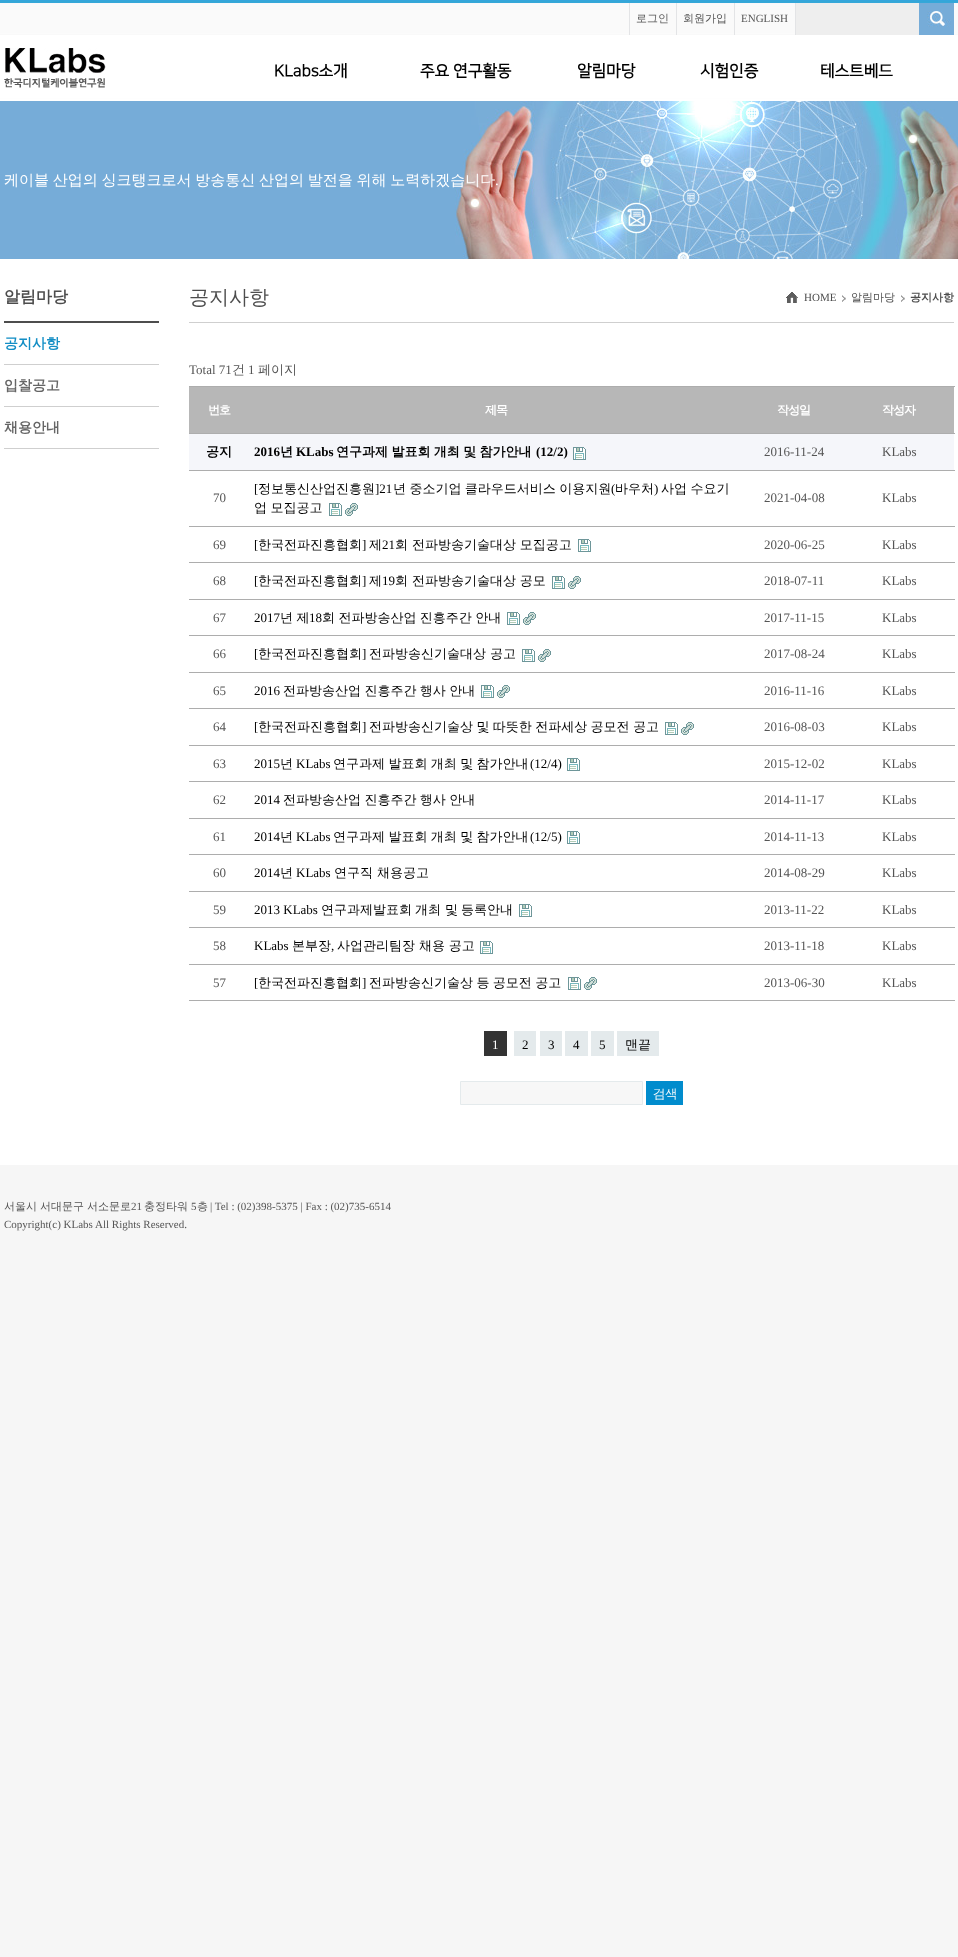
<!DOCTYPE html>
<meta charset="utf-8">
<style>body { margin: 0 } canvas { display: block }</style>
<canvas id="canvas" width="958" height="1957"></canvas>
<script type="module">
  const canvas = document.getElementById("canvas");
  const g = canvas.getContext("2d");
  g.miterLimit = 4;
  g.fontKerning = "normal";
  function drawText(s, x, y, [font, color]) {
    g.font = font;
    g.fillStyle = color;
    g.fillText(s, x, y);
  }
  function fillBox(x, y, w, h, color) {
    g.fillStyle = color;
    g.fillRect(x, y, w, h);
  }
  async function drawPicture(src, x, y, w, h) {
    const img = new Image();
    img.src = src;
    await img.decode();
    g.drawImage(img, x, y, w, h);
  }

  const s1 = ["500 11px WenQuanYi Zen Hei", "#555555"];
  const s2 = ["11px Liberation Serif", "#555555"];
  const s3 = ["bold 16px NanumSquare", "#000000"];
  const s4 = ["500 15px WenQuanYi Zen Hei", "#FFFFFF"];
  const s5 = ["15px Liberation Serif", "#FFFFFF"];
  const s6 = ["bold 16px WenQuanYi Zen Hei", "#4D4D4D"];
  const s7 = ["bold 14px WenQuanYi Zen Hei", "#138EC5"];
  const s8 = ["bold 14px WenQuanYi Zen Hei", "#666666"];
  const s9 = ["500 20px WenQuanYi Zen Hei", "#4D4D4D"];
  const s10 = ["11px Liberation Serif", "#4D4D4D"];
  const s11 = ["500 11px WenQuanYi Zen Hei", "#4D4D4D"];
  const s12 = ["bold 11px WenQuanYi Zen Hei", "#4D4D4D"];
  const s13 = ["13px Liberation Serif", "#555555"];
  const s14 = ["500 13px WenQuanYi Zen Hei", "#555555"];
  const s15 = ["bold 12px WenQuanYi Zen Hei", "#FFFFFF"];
  const s16 = ["bold 13px WenQuanYi Zen Hei", "#000000"];
  const s17 = ["bold 13px Liberation Serif", "#000000"];
  const s18 = ["13px Liberation Serif", "#000000"];
  const s19 = ["500 13px WenQuanYi Zen Hei", "#000000"];
  const s20 = ["13px Liberation Serif", "#FFFFFF"];
  const s21 = ["13px Dotum", "#FFFFFF"];

  fillBox(0, 0, 958, 1957, "#F6F6F6");
  await drawPicture("pic1.png", 0, 0, 958, 101);
  drawText("로그인", 636, 22, s1);
  fillBox(629, 3, 1, 32, "#E3E4E6");
  drawText("회원가입", 683, 22, s1);
  fillBox(676, 3, 1, 32, "#E3E4E6");
  drawText("ENGLISH", 741, 22, s2);
  fillBox(734, 3, 1, 32, "#E3E4E6");
  fillBox(795, 3, 1, 32, "#E3E4E6");
  fillBox(796, 3, 123, 32, "#EEEEEE");
  await drawPicture("pic2.png", 919, 3, 35, 32);
  await drawPicture("pic3.png", 4, 48, 102, 40);
  drawText("KLabs소개", 274, 76, s3);
  drawText("주요 연구활동", 420, 76, s3);
  drawText("알림마당", 577, 76, s3);
  drawText("시험인증", 700, 76, s3);
  drawText("테스트베드", 820, 76, s3);
  fillBox(0, 101, 455, 158, "#76ACD8");
  await drawPicture("pic4.png", 455, 101, 503, 158);
  g.wordSpacing = "-0.75px";
  drawText("케이블 산업의 싱크탱크로서 방송통신 산업의 발전을 위해 노력하겠습니다", 4, 185, s4);
  g.wordSpacing = "0px";
  drawText(".", 495, 185, s5);
  fillBox(0, 259, 958, 906, "#FFFFFF");
  fillBox(4, 321, 155, 2, "#4D4D4D");
  drawText("알림마당", 4, 302, s6);
  fillBox(4, 364, 155, 1, "#CFCFCF");
  drawText("공지사항", 4, 348, s7);
  fillBox(4, 406, 155, 1, "#CFCFCF");
  drawText("입찰공고", 4, 390, s8);
  fillBox(4, 448, 155, 1, "#CFCFCF");
  drawText("채용안내", 4, 432, s8);
  fillBox(189, 322, 765, 1, "#CFCFCF");
  drawText("공지사항", 189, 304, s9);
  await drawPicture("pic5.png", 786, 292, 12, 11);
  drawText("HOME", 804, 301, s10);
  await drawPicture("pic6.png", 842, 295, 4, 7);
  drawText("알림마당", 851, 301, s11);
  await drawPicture("pic6.png", 901, 295, 4, 7);
  drawText("공지사항", 910, 301, s12);
  drawText("Total 71", 189, 374, s13);
  drawText("건", 232, 374, s14);
  drawText("1", 248, 374, s13);
  drawText("페이지", 258, 374, s14);
  fillBox(189, 387, 765, 46, "#B7B7B7");
  g.letterSpacing = "-1px";
  drawText("번호", 208, 414, s15);
  drawText("제목", 485, 414, s15);
  drawText("작성일", 777, 414, s15);
  fillBox(189, 386, 766, 1, "#ADADAD");
  drawText("작성자", 882, 414, s15);
  fillBox(189, 434, 765, 36, "#F5F6FA");
  g.letterSpacing = "0px";
  drawText("공지", 206, 456, s16);
  drawText("2016", 254, 456, s17);
  drawText("년", 280, 456, s16);
  drawText("KLabs", 296, 456, s17);
  g.wordSpacing = "-0.5px";
  drawText("연구과제 발표회 개최 및 참가안내", 336, 456, s16);
  g.wordSpacing = "0px";
  drawText("(12/2)", 536, 456, s17);
  await drawPicture("pic7.png", 573, 447, 13, 13);
  drawText("2016-11-24", 764, 456, s13);
  fillBox(189, 433, 766, 1, "#ADADAD");
  drawText("KLabs", 882, 456, s13);
  drawText("70", 213, 502, s13);
  drawText("[", 254, 493, s18);
  drawText("정보통신산업진흥원", 258, 493, s19);
  drawText("]21", 375, 493, s18);
  g.wordSpacing = "-0.5px";
  drawText("년 중소기업 클라우드서비스 이용지원", 393, 493, s19);
  g.wordSpacing = "0px";
  drawText("(", 611, 493, s18);
  drawText("바우처", 615, 493, s19);
  drawText(")", 654, 493, s18);
  g.wordSpacing = "-0.5px";
  drawText("사업 수요기", 661, 493, s19);
  drawText("업 모집공고", 254, 512, s19);
  await drawPicture("pic8.png", 329, 503, 13, 13);
  await drawPicture("pic9.png", 345, 503, 13, 13);
  g.wordSpacing = "0px";
  drawText("2021-04-08", 764, 502, s13);
  fillBox(189, 470, 766, 1, "#ADADAD");
  drawText("KLabs", 882, 502, s13);
  drawText("69", 213, 549, s13);
  drawText("[", 254, 549, s18);
  drawText("한국전파진흥협회", 258, 549, s19);
  drawText("]", 362, 549, s18);
  drawText("제", 369, 549, s19);
  drawText("21", 382, 549, s18);
  drawText("회 전파방송기술대상 모집공고", 395, 549, s19);
  await drawPicture("pic8.png", 578, 539, 13, 13);
  drawText("2020-06-25", 764, 549, s13);
  fillBox(189, 526, 766, 1, "#ADADAD");
  drawText("KLabs", 882, 549, s13);
  drawText("68", 213, 585, s13);
  drawText("[", 254, 585, s18);
  drawText("한국전파진흥협회", 258, 585, s19);
  drawText("]", 362, 585, s18);
  drawText("제", 369, 585, s19);
  drawText("19", 382, 585, s18);
  drawText("회 전파방송기술대상 공모", 395, 585, s19);
  await drawPicture("pic8.png", 552, 576, 13, 13);
  await drawPicture("pic9.png", 568, 576, 13, 13);
  drawText("2018-07-11", 764, 585, s13);
  fillBox(189, 562, 766, 1, "#ADADAD");
  drawText("KLabs", 882, 585, s13);
  drawText("67", 213, 622, s13);
  drawText("2017", 254, 622, s18);
  g.wordSpacing = "-0.5px";
  drawText("년 제", 280, 622, s19);
  g.wordSpacing = "0px";
  drawText("18", 309, 622, s18);
  g.wordSpacing = "-0.5px";
  drawText("회 전파방송산업 진흥주간 안내", 322, 622, s19);
  await drawPicture("pic8.png", 507, 612, 13, 13);
  await drawPicture("pic9.png", 523, 612, 13, 13);
  g.wordSpacing = "0px";
  drawText("2017-11-15", 764, 622, s13);
  fillBox(189, 599, 766, 1, "#ADADAD");
  drawText("KLabs", 882, 622, s13);
  drawText("66", 213, 658, s13);
  drawText("[", 254, 658, s18);
  drawText("한국전파진흥협회", 258, 658, s19);
  drawText("]", 362, 658, s18);
  drawText("전파방송신기술대상 공고", 369, 658, s19);
  await drawPicture("pic8.png", 522, 649, 13, 13);
  await drawPicture("pic9.png", 538, 649, 13, 13);
  drawText("2017-08-24", 764, 658, s13);
  fillBox(189, 635, 766, 1, "#ADADAD");
  drawText("KLabs", 882, 658, s13);
  drawText("65", 213, 695, s13);
  drawText("2016", 254, 695, s18);
  g.wordSpacing = "-0.5px";
  drawText("전파방송산업 진흥주간 행사 안내", 283, 695, s19);
  await drawPicture("pic8.png", 481, 685, 13, 13);
  await drawPicture("pic9.png", 497, 685, 13, 13);
  g.wordSpacing = "0px";
  drawText("2016-11-16", 764, 695, s13);
  fillBox(189, 672, 766, 1, "#ADADAD");
  drawText("KLabs", 882, 695, s13);
  drawText("64", 213, 731, s13);
  drawText("[", 254, 731, s18);
  drawText("한국전파진흥협회", 258, 731, s19);
  drawText("]", 362, 731, s18);
  g.wordSpacing = "-0.5px";
  drawText("전파방송신기술상 및 따뜻한 전파세상 공모전 공고", 369, 731, s19);
  await drawPicture("pic8.png", 665, 722, 13, 13);
  await drawPicture("pic9.png", 681, 722, 13, 13);
  g.wordSpacing = "0px";
  drawText("2016-08-03", 764, 731, s13);
  fillBox(189, 708, 766, 1, "#ADADAD");
  drawText("KLabs", 882, 731, s13);
  drawText("63", 213, 768, s13);
  drawText("2015", 254, 768, s18);
  drawText("년", 280, 768, s19);
  drawText("KLabs", 296, 768, s18);
  g.wordSpacing = "-0.5px";
  drawText("연구과제 발표회 개최 및 참가안내", 333, 768, s19);
  g.wordSpacing = "0px";
  drawText("(12/4)", 530, 768, s18);
  await drawPicture("pic8.png", 567, 758, 13, 13);
  drawText("2015-12-02", 764, 768, s13);
  fillBox(189, 745, 766, 1, "#ADADAD");
  drawText("KLabs", 882, 768, s13);
  drawText("62", 213, 804, s13);
  drawText("2014", 254, 804, s18);
  g.wordSpacing = "-0.5px";
  drawText("전파방송산업 진흥주간 행사 안내", 283, 804, s19);
  g.wordSpacing = "0px";
  drawText("2014-11-17", 764, 804, s13);
  fillBox(189, 781, 766, 1, "#ADADAD");
  drawText("KLabs", 882, 804, s13);
  drawText("61", 213, 841, s13);
  drawText("2014", 254, 841, s18);
  drawText("년", 280, 841, s19);
  drawText("KLabs", 296, 841, s18);
  g.wordSpacing = "-0.5px";
  drawText("연구과제 발표회 개최 및 참가안내", 333, 841, s19);
  g.wordSpacing = "0px";
  drawText("(12/5)", 530, 841, s18);
  await drawPicture("pic8.png", 567, 831, 13, 13);
  drawText("2014-11-13", 764, 841, s13);
  fillBox(189, 818, 766, 1, "#ADADAD");
  drawText("KLabs", 882, 841, s13);
  drawText("60", 213, 877, s13);
  drawText("2014", 254, 877, s18);
  drawText("년", 280, 877, s19);
  drawText("KLabs", 296, 877, s18);
  drawText("연구직 채용공고", 334, 877, s19);
  drawText("2014-08-29", 764, 877, s13);
  fillBox(189, 854, 766, 1, "#ADADAD");
  drawText("KLabs", 882, 877, s13);
  drawText("59", 213, 914, s13);
  drawText("2013 KLabs", 254, 914, s18);
  drawText("연구과제발표회", 321, 914, s19);
  drawText("개최", 415, 914, s19);
  drawText("및", 445, 914, s19);
  drawText("등록안내", 461, 914, s19);
  await drawPicture("pic8.png", 519, 904, 13, 13);
  drawText("2013-11-22", 764, 914, s13);
  fillBox(189, 891, 766, 1, "#ADADAD");
  drawText("KLabs", 882, 914, s13);
  drawText("58", 213, 950, s13);
  drawText("KLabs", 254, 950, s18);
  drawText("본부장", 292, 950, s19);
  drawText(",", 331, 950, s18);
  drawText("사업관리팀장 채용 공고", 337, 950, s19);
  await drawPicture("pic8.png", 480, 941, 13, 13);
  drawText("2013-11-18", 764, 950, s13);
  fillBox(189, 927, 766, 1, "#ADADAD");
  drawText("KLabs", 882, 950, s13);
  drawText("57", 213, 987, s13);
  drawText("[", 254, 987, s18);
  drawText("한국전파진흥협회", 258, 987, s19);
  drawText("]", 362, 987, s18);
  g.wordSpacing = "-0.5px";
  drawText("전파방송신기술상 등 공모전 공고", 369, 987, s19);
  await drawPicture("pic8.png", 568, 977, 13, 13);
  await drawPicture("pic9.png", 584, 977, 13, 13);
  g.wordSpacing = "0px";
  drawText("2013-06-30", 764, 987, s13);
  fillBox(189, 964, 766, 1, "#ADADAD");
  fillBox(189, 1000, 766, 1, "#ADADAD");
  drawText("KLabs", 882, 987, s13);
  fillBox(484, 1031, 23, 25, "#333333");
  drawText("1", 492, 1049, s20);
  fillBox(514, 1031, 22, 25, "#E4EAEC");
  drawText("2", 522, 1049, s18);
  fillBox(540, 1031, 22, 25, "#E4EAEC");
  drawText("3", 548, 1049, s18);
  fillBox(565, 1031, 23, 25, "#E4EAEC");
  drawText("4", 573, 1049, s18);
  fillBox(591, 1031, 23, 25, "#E4EAEC");
  drawText("5", 599, 1049, s18);
  fillBox(617, 1031, 42, 25, "#E4EAEC");
  drawText("맨끝", 625, 1049, s19);
  g.fillStyle = "#F7F7F7";
  g.beginPath();
  g.rect(460.5, 1081.5, 182, 23);
  g.fill();
  g.strokeStyle = "#E4EAEC";
  g.stroke();
  fillBox(646, 1081, 37, 24, "#018CCD");
  g.letterSpacing = "-1px";
  drawText("검색", 653, 1099, s21);
  g.letterSpacing = "0px";
  drawText("서울시", 4, 1210, s1);
  drawText("서대문구", 40, 1210, s1);
  drawText("서소문로", 87, 1210, s1);
  drawText("21", 131, 1210, s2);
  drawText("충정타워", 144, 1210, s1);
  drawText("5", 191, 1210, s2);
  drawText("층", 197, 1210, s1);
  drawText("| Tel : (02)398-5375 | Fax : (02)735-6514", 210, 1210, s2);
  drawText("Copyright(c) KLabs All Rights Reserved.", 4, 1228, s2);
</script>
